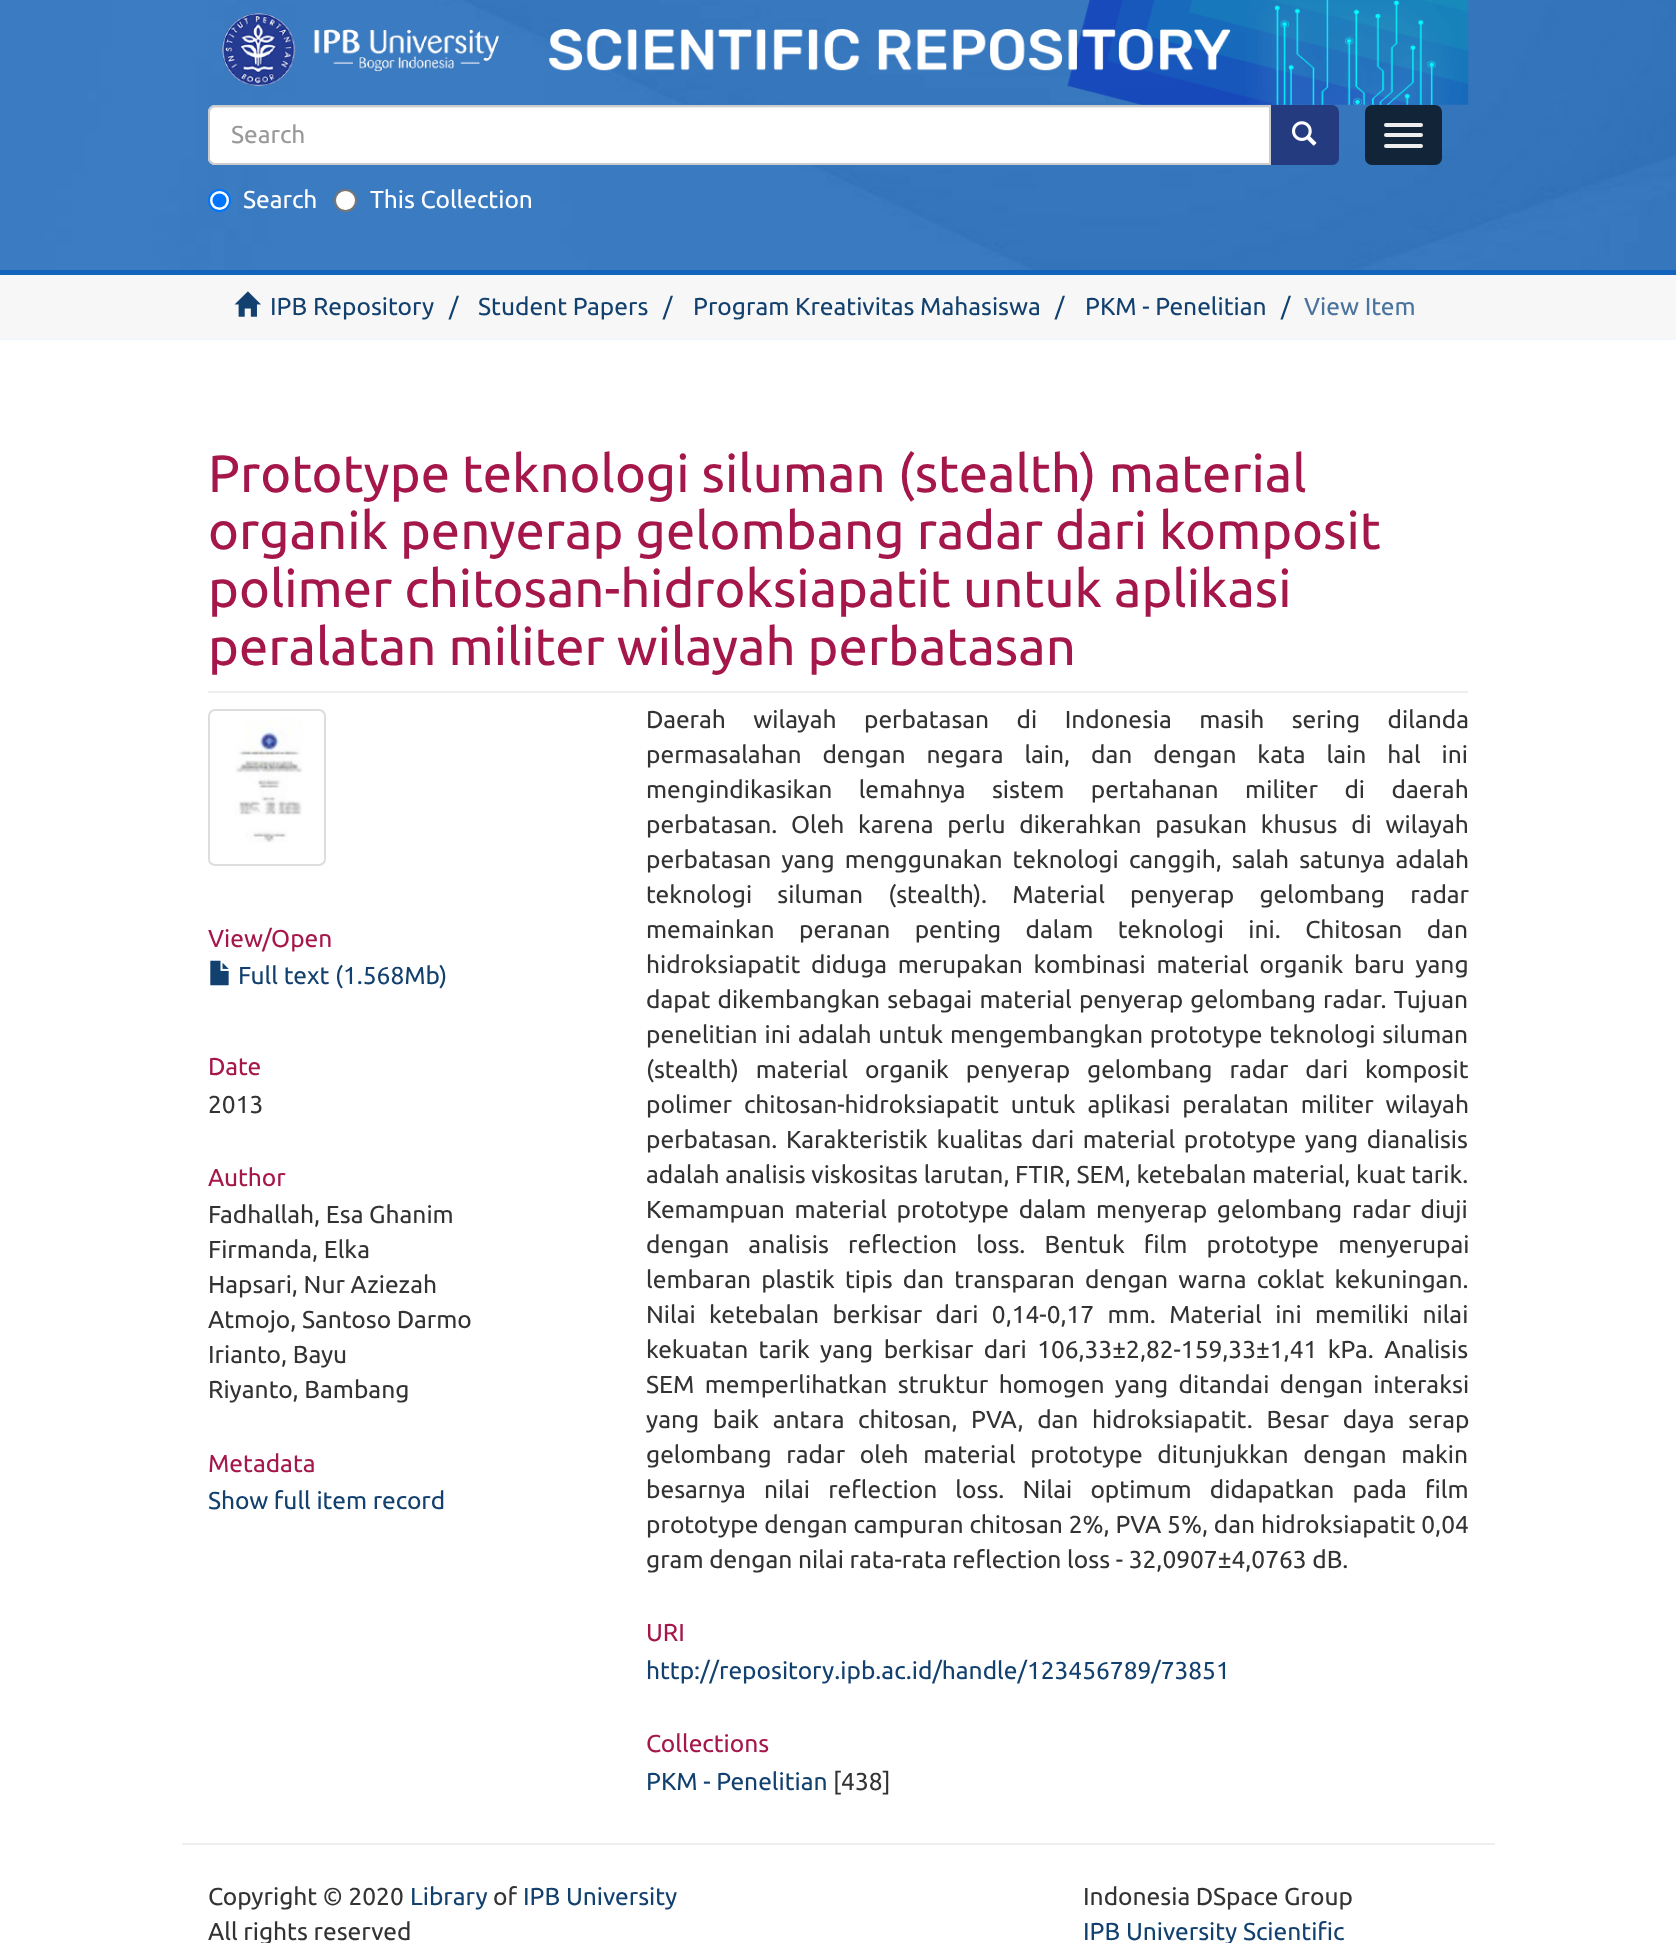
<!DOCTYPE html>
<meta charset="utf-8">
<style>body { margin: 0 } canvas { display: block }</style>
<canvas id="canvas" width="1676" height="1943"></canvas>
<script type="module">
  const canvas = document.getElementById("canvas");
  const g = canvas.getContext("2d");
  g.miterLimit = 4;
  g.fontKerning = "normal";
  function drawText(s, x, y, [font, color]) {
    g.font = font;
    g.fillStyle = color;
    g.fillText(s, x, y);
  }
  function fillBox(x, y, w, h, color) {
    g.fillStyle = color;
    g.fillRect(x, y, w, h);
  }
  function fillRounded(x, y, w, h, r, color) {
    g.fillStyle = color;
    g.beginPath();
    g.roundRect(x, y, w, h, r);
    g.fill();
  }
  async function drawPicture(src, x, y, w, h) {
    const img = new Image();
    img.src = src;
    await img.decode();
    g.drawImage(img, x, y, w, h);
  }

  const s1 = ["24.5px Ubuntu", "#999999"];
  const s2 = ["24.5px Ubuntu", "#FFFFFF"];
  const s3 = ["24.5px Ubuntu", "#13416F"];
  const s4 = ["24.5px Ubuntu", "#4A749E"];
  const s5 = ["52.5px Ubuntu", "#A5174A"];
  const s6 = ["24.5px Ubuntu", "#A5174A"];
  const s7 = ["24.5px Ubuntu", "#333333"];

  fillBox(0, 0, 1676, 1943, "#FFFFFF");
  await drawPicture("pic1.png", 0, 0, 1676, 270);
  fillBox(0, 270, 1676, 5, "#1163BC");
  await drawPicture("pic2.png", 222, 0, 1247, 105);
  g.fillStyle = "#253B80";
  g.beginPath();
  g.roundRect(1270, 106, 68, 58, [0, 6, 6, 0]);
  g.fill();
  g.strokeStyle = "#253B80";
  g.lineWidth = 2;
  g.stroke();
  g.fillStyle = "#FFFFFF";
  g.beginPath();
  g.roundRect(208, 105, 1063, 60, [7, 0, 0, 7]);
  g.fill();
  g.fillStyle = "#ECECEC";
  g.beginPath();
  g.moveTo(215, 108);
  g.lineTo(1269, 108);
  g.lineTo(1269, 107);
  g.lineTo(215, 107);
  g.bezierCurveTo(212, 107, 210, 109, 210, 112);
  g.lineTo(210, 114);
  g.bezierCurveTo(210, 111, 212, 108, 215, 108);
  g.closePath();
  g.fill();
  g.beginPath();
  g.roundRect(209, 106, 1061, 58, [6, 0, 0, 6]);
  g.strokeStyle = "#CCCCCC";
  g.stroke();
  drawText("Search", 231, 143, s1);
  await drawPicture("pic3.png", 1292, 121, 25, 25);
  g.fillStyle = "#FFFFFF";
  g.beginPath();
  g.arc(219.5, 200.5, 10.5, 0, Math.PI * 2);
  g.fill();
  g.strokeStyle = "#0075FF";
  g.stroke();
  g.fillStyle = "#0075FF";
  g.beginPath();
  g.arc(219.5, 200.5, 7, 0, Math.PI * 2);
  g.fill();
  drawText("Search", 243, 208, s2);
  g.beginPath();
  g.arc(345.5, 200.5, 10.5, 0, Math.PI * 2);
  g.fill();
  g.strokeStyle = "#767676";
  g.stroke();
  drawText("This Collection", 370, 208, s2);
  fillRounded(1365, 105, 77, 60, 7, "#122538");
  fillRounded(1384, 123, 39, 4, 2, "#EEEEEE");
  fillRounded(1384, 133, 39, 4, 2, "#EEEEEE");
  fillRounded(1384, 144, 39, 4, 2, "#EEEEEE");
  fillBox(0, 275, 1676, 63, "#F7F7F7");
  fillBox(0, 338, 1676, 2, "#F1F6FC");
  await drawPicture("pic4.png", 234, 291, 27, 26);
  drawText("IPB Repository", 270, 315, s3);
  drawText("/", 449, 315, s3);
  drawText("Student Papers", 478, 315, s3);
  drawText("/", 663, 315, s3);
  drawText("Program Kreativitas Mahasiswa", 693, 315, s3);
  drawText("/", 1055, 315, s3);
  drawText("PKM - Penelitian", 1085, 315, s3);
  drawText("/", 1281, 315, s3);
  drawText("View Item", 1304, 315, s4);
  fillBox(208, 691, 1260, 2, "#EEEEEE");
  drawText("Prototype teknologi siluman (stealth) material", 208, 492, s5);
  drawText("organik penyerap gelombang radar dari komposit", 208, 549, s5);
  drawText("polimer chitosan-hidroksiapatit untuk aplikasi", 208, 607, s5);
  drawText("peralatan militer wilayah perbatasan", 208, 665, s5);
  g.beginPath();
  g.roundRect(209, 710, 116, 155, 6);
  g.strokeStyle = "#DDDDDD";
  g.stroke();
  await drawPicture("pic5.png", 235, 718, 68, 125);
  drawText("View/Open", 208, 947, s6);
  await drawPicture("pic6.png", 210, 960, 19, 26);
  drawText("Full text (1.568Mb)", 238, 984, s3);
  drawText("Date", 208, 1075, s6);
  drawText("2013", 208, 1113, s7);
  drawText("Author", 208, 1186, s6);
  drawText("Fadhallah, Esa Ghanim", 208, 1223, s7);
  drawText("Firmanda, Elka", 208, 1258, s7);
  drawText("Hapsari, Nur Aziezah", 208, 1293, s7);
  drawText("Atmojo, Santoso Darmo", 208, 1328, s7);
  drawText("Irianto, Bayu", 208, 1363, s7);
  drawText("Riyanto, Bambang", 208, 1398, s7);
  drawText("Metadata", 208, 1472, s6);
  drawText("Show full item record", 208, 1509, s3);
  g.wordSpacing = "21.75px";
  drawText("Daerah wilayah perbatasan di Indonesia masih sering dilanda", 646, 728, s7);
  g.wordSpacing = "15.25px";
  drawText("permasalahan dengan negara lain, dan dengan kata lain hal ini", 646, 763, s7);
  g.wordSpacing = "20.75px";
  drawText("mengindikasikan lemahnya sistem pertahanan militer di daerah", 646, 798, s7);
  g.wordSpacing = "8px";
  drawText("perbatasan. Oleh karena perlu dikerahkan pasukan khusus di wilayah", 646, 833, s7);
  g.wordSpacing = "4.5px";
  drawText("perbatasan yang menggunakan teknologi canggih, salah satunya adalah", 646, 868, s7);
  g.wordSpacing = "19.5px";
  drawText("teknologi siluman (stealth). Material penyerap gelombang radar", 646, 903, s7);
  g.wordSpacing = "18.75px";
  drawText("memainkan peranan penting dalam teknologi ini. Chitosan dan", 646, 938, s7);
  g.wordSpacing = "5px";
  drawText("hidroksiapatit diduga merupakan kombinasi material organik baru yang", 646, 973, s7);
  g.wordSpacing = "1.5px";
  drawText("dapat dikembangkan sebagai material penyerap gelombang radar. Tujuan", 646, 1008, s7);
  g.wordSpacing = "1.25px";
  drawText("penelitian ini adalah untuk mengembangkan prototype teknologi siluman", 646, 1043, s7);
  g.wordSpacing = "11.25px";
  drawText("(stealth) material organik penyerap gelombang radar dari komposit", 646, 1078, s7);
  g.wordSpacing = "6.25px";
  drawText("polimer chitosan-hidroksiapatit untuk aplikasi peralatan militer wilayah", 646, 1113, s7);
  g.wordSpacing = "3px";
  drawText("perbatasan. Karakteristik kualitas dari material prototype yang dianalisis", 646, 1148, s7);
  g.wordSpacing = "0px";
  drawText("adalah analisis viskositas larutan, FTIR, SEM, ketebalan material, kuat tarik.", 646, 1183, s7);
  g.wordSpacing = "4px";
  drawText("Kemampuan material prototype dalam menyerap gelombang radar diuji", 646, 1218, s7);
  g.wordSpacing = "13.5px";
  drawText("dengan analisis reflection loss. Bentuk film prototype menyerupai", 646, 1253, s7);
  g.wordSpacing = "4.5px";
  drawText("lembaran plastik tipis dan transparan dengan warna coklat kekuningan.", 646, 1288, s7);
  g.wordSpacing = "7.75px";
  drawText("Nilai ketebalan berkisar dari 0,14-0,17 mm. Material ini memiliki nilai", 646, 1323, s7);
  g.wordSpacing = "4.75px";
  drawText("kekuatan tarik yang berkisar dari 106,33±2,82-159,33±1,41 kPa. Analisis", 646, 1358, s7);
  drawText("SEM memperlihatkan struktur homogen yang ditandai dengan interaksi", 646, 1393, s7);
  g.wordSpacing = "8px";
  drawText("yang baik antara chitosan, PVA, dan hidroksiapatit. Besar daya serap", 646, 1428, s7);
  g.wordSpacing = "9px";
  drawText("gelombang radar oleh material prototype ditunjukkan dengan makin", 646, 1463, s7);
  g.wordSpacing = "12.5px";
  drawText("besarnya nilai reflection loss. Nilai optimum didapatkan pada film", 646, 1498, s7);
  g.wordSpacing = "0.25px";
  drawText("prototype dengan campuran chitosan 2%, PVA 5%, dan hidroksiapatit 0,04", 646, 1533, s7);
  g.wordSpacing = "0px";
  drawText("gram dengan nilai rata-rata reflection loss - 32,0907±4,0763 dB.", 646, 1568, s7);
  drawText("URI", 646, 1641, s6);
  drawText("http://repository.ipb.ac.id/handle/123456789/73851", 646, 1679, s3);
  drawText("Collections", 646, 1752, s6);
  drawText("PKM - Penelitian", 646, 1790, s3);
  drawText("[438]", 833, 1790, s7);
  fillBox(182, 1843, 1313, 2, "#EEEEEE");
  drawText("Copyright © 2020", 208, 1905, s7);
  drawText("Library", 410, 1905, s3);
  drawText("of", 493, 1905, s7);
  drawText("IPB University", 523, 1905, s3);
  drawText("All rights reserved", 208, 1940, s7);
  drawText("Indonesia DSpace Group", 1083, 1905, s7);
  drawText("IPB University Scientific", 1083, 1940, s3);
</script>
